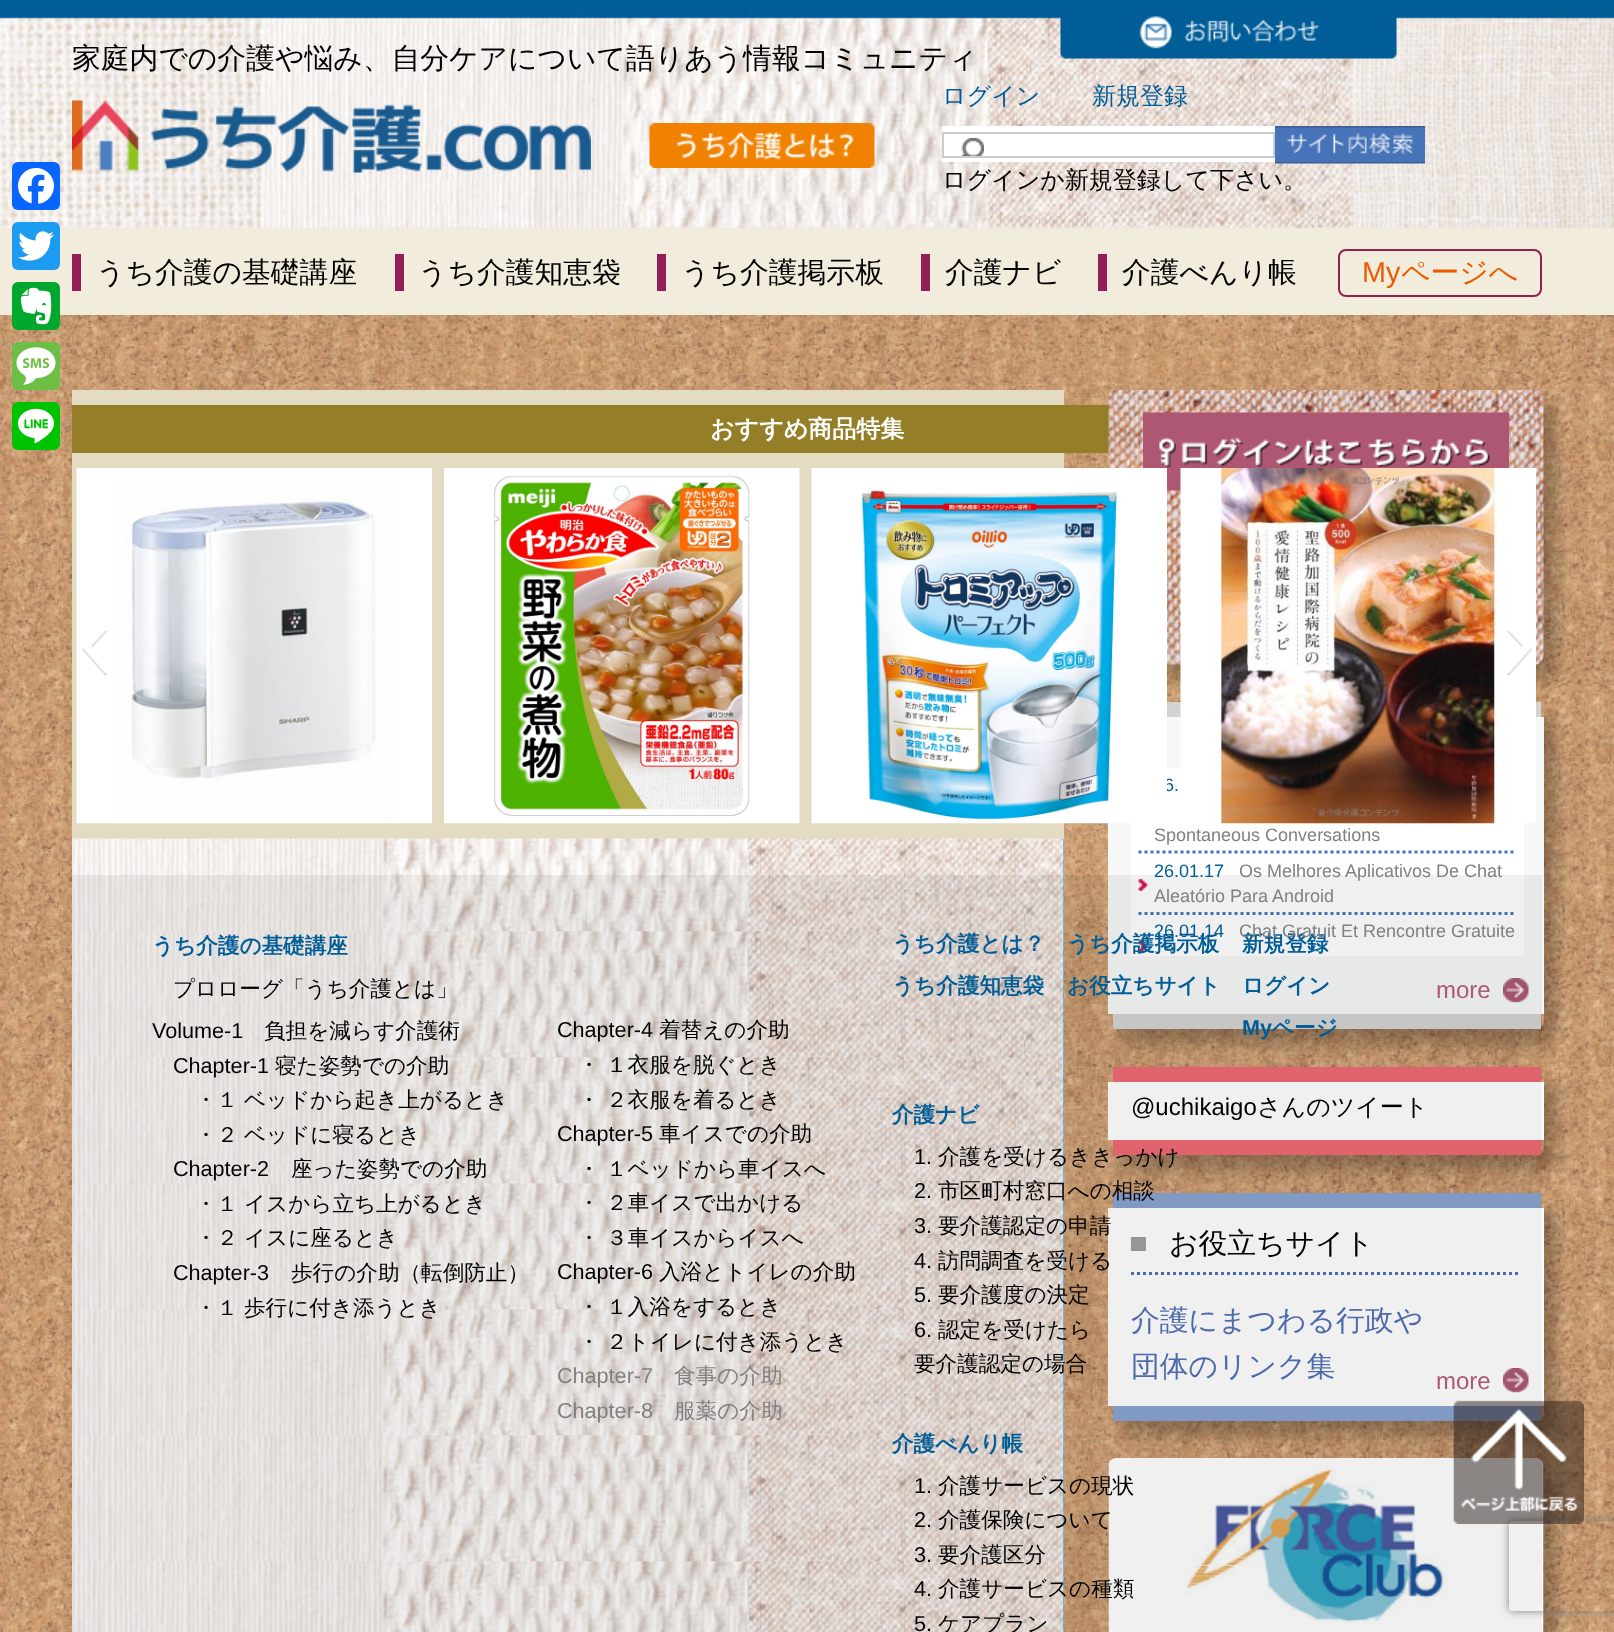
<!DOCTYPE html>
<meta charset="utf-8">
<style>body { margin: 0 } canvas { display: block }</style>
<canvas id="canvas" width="1614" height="1632"></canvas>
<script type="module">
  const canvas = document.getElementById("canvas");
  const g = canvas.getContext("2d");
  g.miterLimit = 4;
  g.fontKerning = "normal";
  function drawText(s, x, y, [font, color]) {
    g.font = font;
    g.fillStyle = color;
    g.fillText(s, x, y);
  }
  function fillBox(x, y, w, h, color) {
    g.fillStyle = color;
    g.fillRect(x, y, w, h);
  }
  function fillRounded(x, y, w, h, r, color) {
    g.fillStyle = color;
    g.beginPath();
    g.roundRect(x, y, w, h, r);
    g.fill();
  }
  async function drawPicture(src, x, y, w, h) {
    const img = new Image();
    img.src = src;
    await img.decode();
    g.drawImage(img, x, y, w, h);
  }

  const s1 = ["500 28.8px WenQuanYi Zen Hei", "#000000"];
  const s2 = ["500 24px WenQuanYi Zen Hei", "#005D97"];
  const s3 = ["500 24px WenQuanYi Zen Hei", "#000000"];
  const s4 = ["28.8px Liberation Sans", "#EB5C01"];
  const s5 = ["500 28.8px WenQuanYi Zen Hei", "#EB5C01"];
  const s6 = ["bold 24px WenQuanYi Zen Hei", "#FFFFFF"];
  const s7 = ["18px Liberation Sans", "#005D97"];
  const s8 = ["bold 21.6px WenQuanYi Zen Hei", "#005D97"];
  const s9 = ["500 21.6px WenQuanYi Zen Hei", "#000000"];
  const s10 = ["21.6px Liberation Sans", "#000000"];
  const s11 = ["21.6px Liberation Sans", "#808080"];
  const s12 = ["500 21.6px WenQuanYi Zen Hei", "#808080"];
  const s13 = ["bold 21.6px Liberation Sans", "#005D97"];
  const s14 = ["18px Liberation Sans", "#808080"];
  const s15 = ["24px Liberation Sans", "#AC5975"];
  const s16 = ["24px Liberation Sans", "#000000"];
  const s17 = ["500 28.8px WenQuanYi Zen Hei", "#4F6BAB"];

  fillBox(0, 0, 1614, 1632, "#FFFFFF");
  await drawPicture("pic1.png", 0, 315, 1614, 1317);
  fillBox(0, 229, 1614, 86, "#F1ECDB");
  await drawPicture("pic2.png", 0, 0, 1614, 229);
  drawText("家庭内での介護や悩み、自分ケアについて語りあう情報コミュニティ", 72, 68, s1);
  await drawPicture("pic3.png", 1060, 12, 337, 47);
  await drawPicture("pic4.png", 72, 100, 519, 73);
  await drawPicture("pic5.png", 649, 123, 226, 45);
  drawText("ログイン", 942, 104, s2);
  drawText("新規登録", 1092, 104, s2);
  fillBox(942, 126, 333, 36, "#FFFFFF");
  await drawPicture("pic6.png", 960, 138, 24, 18);
  g.strokeStyle = "#CCCCCC";
  g.lineWidth = 2;
  g.strokeRect(943, 133, 331, 24);
  await drawPicture("pic7.png", 1275, 126, 150, 38);
  drawText("ログインか新規登録して下さい。", 942, 188, s3);
  drawText("うち介護の基礎講座", 96, 282, s1);
  fillBox(72, 254, 9, 37, "#941E57");
  drawText("うち介護知恵袋", 418, 282, s1);
  fillBox(395, 254, 9, 37, "#941E57");
  drawText("うち介護掲示板", 681, 282, s1);
  fillBox(657, 254, 9, 37, "#941E57");
  drawText("介護ナビ", 945, 282, s1);
  fillBox(921, 254, 9, 37, "#941E57");
  drawText("介護べんり帳", 1122, 282, s1);
  fillBox(1098, 254, 9, 37, "#941E57");
  g.beginPath();
  g.roundRect(1339, 250, 202, 46, 7);
  g.strokeStyle = "#941E57";
  g.stroke();
  drawText("My", 1362, 282, s4);
  drawText("ページへ", 1401, 282, s5);
  fillRounded(12, 162, 48, 48, 6, "#0866FF");
  await drawPicture("pic8.png", 18, 168, 36, 36);
  fillRounded(12, 222, 48, 48, 6, "#1D9BF0");
  await drawPicture("pic9.png", 18, 231, 36, 30);
  fillRounded(12, 282, 48, 48, 6, "#00A82D");
  await drawPicture("pic10.png", 20, 287, 32, 38);
  fillRounded(12, 342, 48, 48, 6, "#6CBE45");
  await drawPicture("pic11.png", 16, 347, 40, 38);
  fillRounded(12, 402, 48, 48, 6, "#00C300");
  await drawPicture("pic12.png", 18, 408, 36, 36);
  fillBox(72, 390, 992, 449, "#E3DCC3");
  fillBox(72, 405, 1037, 48, "#947F28");
  drawText("おすすめ商品特集", 710, 437, s6);
  await drawPicture("pic13.png", 76, 468, 356, 356);
  await drawPicture("pic14.png", 444, 468, 356, 356);
  g.fillStyle = "rgba(0, 0, 0, 0.25)";
  g.filter = "blur(7.5px)";
  g.beginPath();
  g.roundRect(1124, 405, 435, 275, 8);
  g.fill();
  g.filter = "none";
  await drawPicture("pic21.png", 1108, 390, 436, 275);
  g.filter = "blur(15px)";
  g.beginPath();
  g.roundRect(1197, 531, 269, 48, 24);
  g.fill();
  g.filter = "none";
  await drawPicture("pic22.png", 1143, 412, 366, 79);
  g.filter = "blur(15px)";
  g.beginPath();
  g.roundRect(1197, 602, 269, 48, 24);
  g.fill();
  g.filter = "none";
  g.save();
  g.beginPath();
  g.moveTo(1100, 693);
  g.lineTo(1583, 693);
  g.lineTo(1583, 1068);
  g.lineTo(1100, 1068);
  g.closePath();
  g.moveTo(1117, 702);
  g.lineTo(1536, 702);
  g.bezierCurveTo(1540.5, 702, 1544, 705.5, 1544, 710);
  g.lineTo(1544, 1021);
  g.bezierCurveTo(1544, 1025.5, 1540.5, 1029, 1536, 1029);
  g.lineTo(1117, 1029);
  g.bezierCurveTo(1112.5, 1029, 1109, 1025.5, 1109, 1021);
  g.lineTo(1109, 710);
  g.bezierCurveTo(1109, 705.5, 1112.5, 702, 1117, 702);
  g.closePath();
  g.clip("evenodd");
  g.filter = "blur(7.5px)";
  g.beginPath();
  g.roundRect(1124, 717, 435, 327, 8);
  g.fill();
  g.filter = "none";
  g.restore();
  g.fillStyle = "#F6F7F7";
  g.beginPath();
  g.moveTo(1116, 717);
  g.lineTo(1544, 717);
  g.lineTo(1544, 1014);
  g.lineTo(1108, 1014);
  g.lineTo(1108, 717);
  g.closePath();
  g.fill();
  fillBox(1131, 768, 393, 188, "#FFFFFF");
  drawText("6.", 1164, 791, s7);
  await drawPicture("pic15.png", 811, 468, 356, 356);
  fillBox(1167, 702, 374, 15, "#D3D3D4");
  await drawPicture("pic16.png", 1180, 468, 356, 356);
  await drawPicture("pic17.png", 82, 630, 25, 46);
  await drawPicture("pic18.png", 1507, 630, 25, 46);
  fillBox(1063, 839, 1, 793, "#0099FF");
  await drawPicture("pic19.png", 72, 838, 992, 794);
  fillBox(1113, 1014, 428, 15, "#D3D3D4");
  await drawPicture("pic23.png", 1138, 879, 10, 12);
  g.beginPath();
  g.moveTo(1138.5, 913.5);
  g.lineTo(1516.5, 913.5);
  g.strokeStyle = "#4774B9";
  g.lineWidth = 3;
  g.setLineDash([3, 3]);
  g.stroke();
  await drawPicture("pic24.png", 1138, 940, 10, 13);
  await drawPicture("pic25.png", 1503, 978, 26, 25);
  g.save();
  g.beginPath();
  g.moveTo(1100, 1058);
  g.lineTo(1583, 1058);
  g.lineTo(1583, 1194);
  g.lineTo(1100, 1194);
  g.closePath();
  g.moveTo(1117, 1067);
  g.lineTo(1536, 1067);
  g.bezierCurveTo(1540.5, 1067, 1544, 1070.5, 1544, 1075);
  g.lineTo(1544, 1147);
  g.bezierCurveTo(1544, 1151.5, 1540.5, 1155, 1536, 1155);
  g.lineTo(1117, 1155);
  g.bezierCurveTo(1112.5, 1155, 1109, 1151.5, 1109, 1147);
  g.lineTo(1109, 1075);
  g.bezierCurveTo(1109, 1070.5, 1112.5, 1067, 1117, 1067);
  g.closePath();
  g.clip("evenodd");
  g.fillStyle = "rgba(0, 0, 0, 0.25)";
  g.filter = "blur(7.5px)";
  g.beginPath();
  g.roundRect(1124, 1082, 435, 88, 8);
  g.fill();
  g.filter = "none";
  g.restore();
  g.fillStyle = "#FFFFFF";
  g.beginPath();
  g.moveTo(1116, 1082);
  g.lineTo(1544, 1082);
  g.lineTo(1544, 1140);
  g.lineTo(1108, 1140);
  g.lineTo(1108, 1082);
  g.closePath();
  g.fill();
  fillBox(1113, 1067, 428, 15, "#EE6A75");
  fillBox(1113, 1140, 428, 15, "#EE6A75");
  g.fillStyle = "rgba(0, 0, 0, 0.25)";
  g.filter = "blur(7.5px)";
  g.beginPath();
  g.roundRect(1124, 1473, 435, 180, 8);
  g.fill();
  g.filter = "none";
  await drawPicture("pic27.png", 1108, 1458, 436, 174);
  g.save();
  g.beginPath();
  g.moveTo(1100, 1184);
  g.lineTo(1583, 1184);
  g.lineTo(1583, 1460);
  g.lineTo(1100, 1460);
  g.closePath();
  g.moveTo(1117, 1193);
  g.lineTo(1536, 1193);
  g.bezierCurveTo(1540.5, 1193, 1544, 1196.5, 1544, 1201);
  g.lineTo(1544, 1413);
  g.bezierCurveTo(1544, 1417.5, 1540.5, 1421, 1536, 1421);
  g.lineTo(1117, 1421);
  g.bezierCurveTo(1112.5, 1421, 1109, 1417.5, 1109, 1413);
  g.lineTo(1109, 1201);
  g.bezierCurveTo(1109, 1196.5, 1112.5, 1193, 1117, 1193);
  g.closePath();
  g.clip("evenodd");
  g.filter = "blur(7.5px)";
  g.beginPath();
  g.roundRect(1124, 1208, 435, 228, 8);
  g.fill();
  g.filter = "none";
  g.restore();
  g.fillStyle = "#FFFFFF";
  g.beginPath();
  g.moveTo(1116, 1208);
  g.lineTo(1544, 1208);
  g.lineTo(1544, 1406);
  g.lineTo(1108, 1406);
  g.lineTo(1108, 1208);
  g.closePath();
  g.fill();
  fillBox(1113, 1193, 428, 15, "#8AA4D1");
  fillBox(1113, 1406, 428, 15, "#8AA4D1");
  fillBox(1131, 1237, 15, 14, "#9FA0A0");
  g.beginPath();
  g.moveTo(1131, 1273.5);
  g.lineTo(1521, 1273.5);
  g.stroke();
  await drawPicture("pic26.png", 1503, 1368, 26, 25);
  fillBox(72, 875, 1470, 757, "rgba(0, 0, 0, 0.06)");
  drawText("うち介護の基礎講座", 152, 953, s8);
  drawText("プロローグ「うち介護とは」", 173, 996, s9);
  drawText("Volume-1", 152, 1038, s10);
  drawText("負担を減らす介護術", 264, 1038, s9);
  drawText("Chapter-1", 173, 1073, s10);
  drawText("寝た姿勢での介助", 275, 1073, s9);
  drawText("・１", 195, 1107, s9);
  drawText("ベッドから起き上がるとき", 244, 1107, s9);
  drawText("・２", 195, 1142, s9);
  drawText("ベッドに寝るとき", 244, 1142, s9);
  drawText("Chapter-2", 173, 1176, s10);
  drawText("座った姿勢での介助", 291, 1176, s9);
  drawText("・１", 195, 1211, s9);
  drawText("イスから立ち上がるとき", 244, 1211, s9);
  drawText("・２", 195, 1245, s9);
  drawText("イスに座るとき", 244, 1245, s9);
  drawText("Chapter-3", 173, 1280, s10);
  drawText("歩行の介助（転倒防止）", 291, 1280, s9);
  drawText("・１", 195, 1315, s9);
  drawText("歩行に付き添うとき", 244, 1315, s9);
  drawText("Chapter-4", 557, 1037, s10);
  drawText("着替えの介助", 659, 1037, s9);
  drawText("・", 578, 1072, s9);
  drawText("１衣服を脱ぐとき", 606, 1072, s9);
  drawText("・", 578, 1107, s9);
  drawText("２衣服を着るとき", 606, 1107, s9);
  drawText("Chapter-5", 557, 1141, s10);
  drawText("車イスでの介助", 659, 1141, s9);
  drawText("・", 578, 1176, s9);
  drawText("１ベッドから車イスへ", 606, 1176, s9);
  drawText("・", 578, 1210, s9);
  drawText("２車イスで出かける", 606, 1210, s9);
  drawText("・", 578, 1245, s9);
  drawText("３車イスからイスへ", 606, 1245, s9);
  drawText("Chapter-6", 557, 1279, s10);
  drawText("入浴とトイレの介助", 659, 1279, s9);
  drawText("・", 578, 1314, s9);
  drawText("１入浴をするとき", 606, 1314, s9);
  drawText("・", 578, 1349, s9);
  drawText("２トイレに付き添うとき", 606, 1349, s9);
  drawText("Chapter-7", 557, 1383, s11);
  drawText("食事の介助", 674, 1383, s12);
  drawText("Chapter-8", 557, 1418, s11);
  drawText("服薬の介助", 674, 1418, s12);
  drawText("うち介護とは？", 892, 951, s8);
  drawText("うち介護知恵袋", 892, 993, s8);
  drawText("うち介護掲示板", 1067, 951, s8);
  drawText("お役立ちサイト", 1067, 993, s8);
  drawText("新規登録", 1242, 951, s8);
  drawText("ログイン", 1242, 993, s8);
  drawText("My", 1242, 1035, s13);
  drawText("ページ", 1272, 1035, s8);
  drawText("介護ナビ", 892, 1122, s8);
  drawText("1.", 914, 1164, s10);
  drawText("介護を受けるききっかけ", 938, 1164, s9);
  drawText("2.", 914, 1198, s10);
  drawText("市区町村窓口への相談", 938, 1198, s9);
  drawText("3.", 914, 1233, s10);
  drawText("要介護認定の申請", 938, 1233, s9);
  drawText("4.", 914, 1268, s10);
  drawText("訪問調査を受ける", 938, 1268, s9);
  drawText("5.", 914, 1302, s10);
  drawText("要介護度の決定", 938, 1302, s9);
  drawText("6.", 914, 1337, s10);
  drawText("認定を受けたら", 938, 1337, s9);
  drawText("要介護認定の場合", 914, 1371, s9);
  drawText("介護べんり帳", 892, 1451, s8);
  drawText("1.", 914, 1493, s10);
  drawText("介護サービスの現状", 938, 1493, s9);
  drawText("2.", 914, 1527, s10);
  drawText("介護保険について", 938, 1527, s9);
  drawText("3.", 914, 1562, s10);
  drawText("要介護区分", 938, 1562, s9);
  drawText("4.", 914, 1596, s10);
  drawText("介護サービスの種類", 938, 1596, s9);
  drawText("5.", 914, 1631, s10);
  drawText("ケアプラン", 938, 1631, s9);
  g.save();
  g.beginPath();
  g.moveTo(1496, 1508);
  g.lineTo(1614, 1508);
  g.lineTo(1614, 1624);
  g.lineTo(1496, 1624);
  g.closePath();
  g.moveTo(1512, 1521);
  g.lineTo(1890, 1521);
  g.bezierCurveTo(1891.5, 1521, 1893, 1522.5, 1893, 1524);
  g.lineTo(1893, 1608);
  g.bezierCurveTo(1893, 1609.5, 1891.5, 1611, 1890, 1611);
  g.lineTo(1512, 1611);
  g.bezierCurveTo(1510.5, 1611, 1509, 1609.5, 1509, 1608);
  g.lineTo(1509, 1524);
  g.bezierCurveTo(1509, 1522.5, 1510.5, 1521, 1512, 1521);
  g.closePath();
  g.clip("evenodd");
  g.fillStyle = "#808080";
  g.filter = "blur(4px)";
  g.beginPath();
  g.roundRect(1509, 1521, 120, 90, 3);
  g.fill();
  g.filter = "none";
  g.restore();
  await drawPicture("pic20.png", 1453, 1400, 131, 124);
  g.beginPath();
  g.moveTo(1138.5, 852);
  g.lineTo(1516.5, 852);
  g.stroke();
  drawText("Spontaneous Conversations", 1154, 841, s14);
  drawText("26.01.17", 1154, 877, s7);
  drawText("Os Melhores Aplicativos De Chat", 1239, 877, s14);
  drawText("Aleatório Para Android", 1154, 902, s14);
  drawText("26.01.14", 1154, 937, s7);
  drawText("Chat Gratuit Et Rencontre Gratuite", 1239, 937, s14);
  drawText("more", 1436, 998, s15);
  drawText("@uchikaigo", 1131, 1115, s16);
  drawText("さんのツイート", 1257, 1115, s3);
  drawText("お役立ちサイト", 1169, 1253, s1);
  drawText("介護にまつわる行政や", 1131, 1330, s17);
  drawText("団体のリンク集", 1131, 1376, s17);
  drawText("more", 1436, 1389, s15);
</script>
